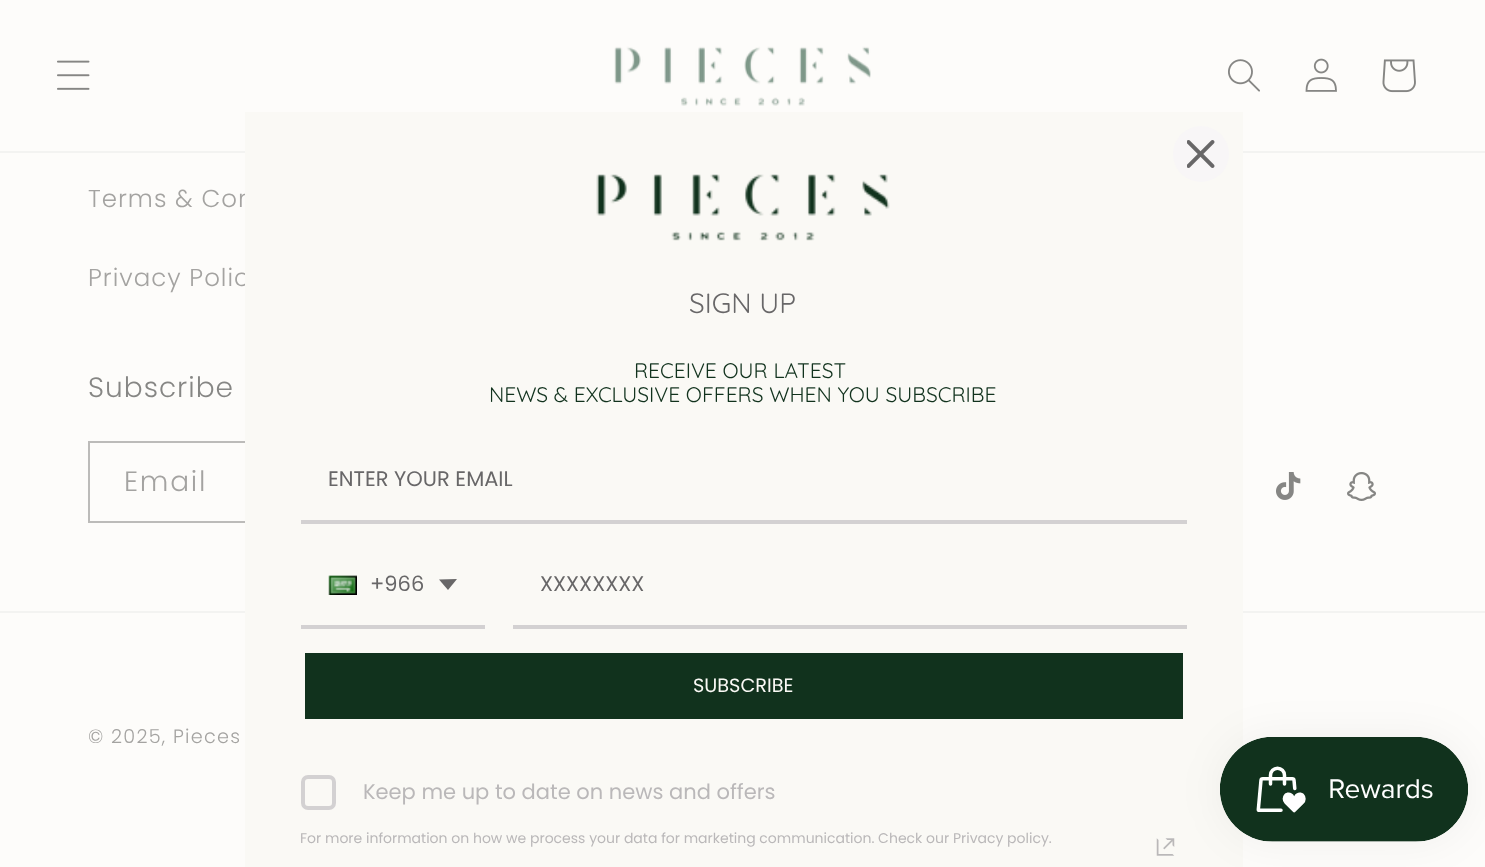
<!DOCTYPE html>
<meta charset="utf-8">
<style>body { margin: 0 } canvas { display: block }</style>
<canvas id="canvas" width="1485" height="867"></canvas>
<script type="module">
  const canvas = document.getElementById("canvas");
  const g = canvas.getContext("2d");
  g.miterLimit = 4;
  g.fontKerning = "normal";
  function drawText(s, x, y, [font, color]) {
    g.font = font;
    g.fillStyle = color;
    g.fillText(s, x, y);
  }
  function fillBox(x, y, w, h, color) {
    g.fillStyle = color;
    g.fillRect(x, y, w, h);
  }
  async function drawPicture(src, x, y, w, h) {
    const img = new Image();
    img.src = src;
    await img.decode();
    g.drawImage(img, x, y, w, h);
  }

  const s1 = ["300 24.5px Poppins", "#A4A3A1"];
  const s2 = ["300 28px Poppins", "#868684"];
  const s3 = ["300 28px Poppins", "#A4A3A1"];
  const s4 = ["300 19.25px Poppins", "#A4A3A1"];
  const s5 = ["28px Quicksand", "#686768"];
  const s6 = ["21px Quicksand", "#11321D"];
  const s7 = ["21px Poppins", "#686768"];
  const s8 = ["19.25px Poppins", "#FAF9F5"];
  const s9 = ["21px Poppins", "#BAB8B9"];
  const s10 = ["14px Poppins", "#BAB8B9"];

  fillBox(0, 0, 1485, 867, "#FDFCFA");
  fillBox(0, 151, 1485, 2, "#F3F3F1");
  await drawPicture("pic1.png", 57, 60, 33, 30);
  await drawPicture("pic2.png", 614, 46, 257, 60);
  await drawPicture("pic3.png", 1228, 59, 32, 33);
  await drawPicture("pic4.png", 1305, 58, 32, 34);
  await drawPicture("pic5.png", 1382, 59, 34, 34);
  g.letterSpacing = "1px";
  drawText("Terms & Con", 88, 207, s1);
  drawText("Privacy Polic", 88, 286, s1);
  drawText("Subscribe", 88, 397, s2);
  g.strokeStyle = "#BCBBB9";
  g.lineWidth = 2;
  g.strokeRect(89, 442, 628, 80);
  g.letterSpacing = "1.75px";
  drawText("Email", 124, 491, s3);
  await drawPicture("pic6.png", 1276, 472, 25, 28);
  await drawPicture("pic7.png", 1347, 472, 29, 29);
  fillBox(0, 611, 1485, 2, "#F3F3F1");
  g.letterSpacing = "1.25px";
  drawText("© 2025, Pieces", 88, 743, s4);
  fillBox(245, 112, 998, 755, "#FAF9F5");
  g.fillStyle = "#F8F6F7";
  g.beginPath();
  g.arc(1201, 154, 28, 0, Math.PI * 2);
  g.fill();
  await drawPicture("pic8.png", 1187, 140, 28, 28);
  await drawPicture("pic9.png", 596, 174, 294, 67);
  g.letterSpacing = "0px";
  drawText("SIGN UP", 689, 313, s5);
  drawText("RECEIVE OUR LATEST", 634, 378, s6);
  drawText("NEWS & EXCLUSIVE OFFERS WHEN YOU SUBSCRIBE", 489, 402, s6);
  fillBox(301, 520, 886, 4, "#D3D1D2");
  drawText("ENTER YOUR EMAIL", 328, 486, s7);
  fillBox(301, 625, 184, 4, "#D3D1D2");
  await drawPicture("pic10.png", 328, 575, 29, 20);
  drawText("+966", 370, 591, s7);
  g.beginPath();
  g.moveTo(439, 579.5);
  g.lineTo(457, 579);
  g.lineTo(448, 590);
  g.closePath();
  g.fill("evenodd");
  fillBox(513, 625, 674, 4, "#D3D1D2");
  drawText("XXXXXXXX", 540, 591, s7);
  fillBox(305, 653, 878, 66, "#11321D");
  drawText("SUBSCRIBE", 693, 692, s8);
  g.beginPath();
  g.roundRect(303, 777, 31, 31, 5);
  g.strokeStyle = "#D3D1D2";
  g.lineWidth = 4;
  g.stroke();
  drawText("Keep me up to date on news and offers", 363, 799, s9);
  drawText("For more information on how we process your data for marketing communication. Check our Privacy policy.", 300, 843, s10);
  await drawPicture("pic11.png", 1156, 838, 19, 18);
  g.fillStyle = "rgba(0, 0, 0, 0.05)";
  g.filter = "blur(22px)";
  g.beginPath();
  g.roundRect(1220, 737, 248, 105, 52.5);
  g.fill();
  g.filter = "none";
  await drawPicture("pic12.png", 1220, 737, 248, 105);
</script>
